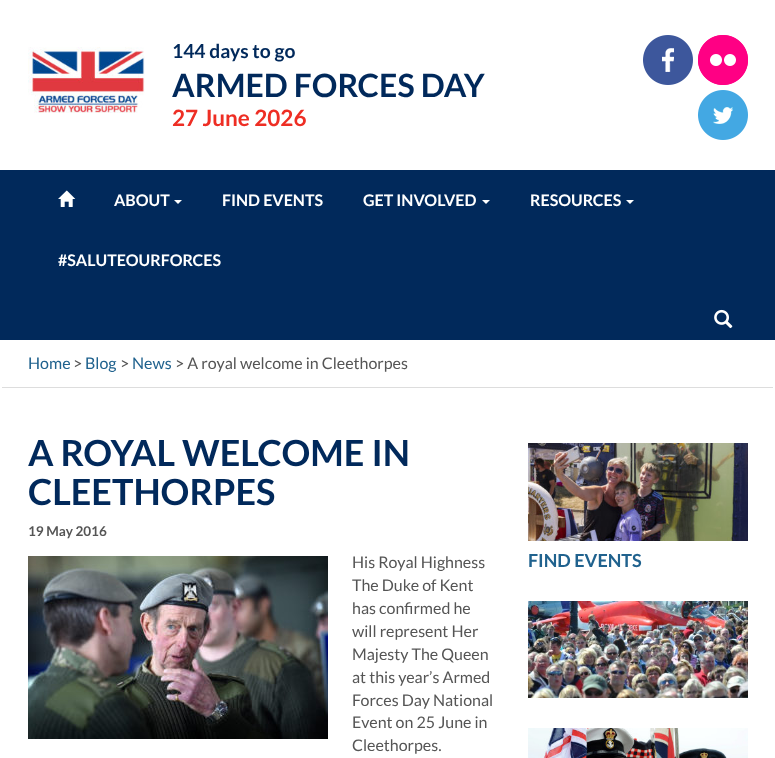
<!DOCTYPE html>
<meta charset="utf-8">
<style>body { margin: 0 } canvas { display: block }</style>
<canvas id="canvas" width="775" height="758"></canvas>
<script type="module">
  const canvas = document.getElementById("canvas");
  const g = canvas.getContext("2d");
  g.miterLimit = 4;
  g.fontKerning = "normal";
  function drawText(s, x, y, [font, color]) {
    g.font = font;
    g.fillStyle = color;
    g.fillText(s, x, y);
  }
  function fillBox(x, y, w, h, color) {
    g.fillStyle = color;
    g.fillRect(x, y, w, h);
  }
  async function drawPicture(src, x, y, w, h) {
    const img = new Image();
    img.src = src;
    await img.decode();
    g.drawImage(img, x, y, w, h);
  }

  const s1 = ["bold 19.25px Lato", "#01295B"];
  const s2 = ["bold 32px Lato", "#01295B"];
  const s3 = ["bold 22.5px Lato", "#EE2E24"];
  const s4 = ["bold 16px Lato", "#FFFFFF"];
  const s5 = ["16px Lato", "#20628E"];
  const s6 = ["16px Lato", "#555555"];
  const s7 = ["bold 36px Lato", "#01295B"];
  const s8 = ["bold 13.5px Lato", "#555555"];
  const s9 = ["bold 18px Lato", "#20628E"];

  fillBox(0, 0, 775, 758, "#FFFFFF");
  await drawPicture("pic1.png", 28, 47, 117, 66);
  drawText("144 days to go", 172, 58, s1);
  drawText("ARMED FORCES DAY", 172, 97, s2);
  drawText("27 June 2026", 172, 126, s3);
  await drawPicture("pic2.png", 643, 35, 50, 50);
  await drawPicture("pic3.png", 698, 35, 50, 50);
  await drawPicture("pic4.png", 698, 90, 50, 50);
  fillBox(0, 170, 775, 170, "#01295B");
  await drawPicture("pic5.png", 58, 190, 18, 17);
  drawText("ABOUT", 114, 206, s4);
  g.beginPath();
  g.moveTo(174, 200);
  g.lineTo(182, 200);
  g.lineTo(178, 204);
  g.closePath();
  g.fill();
  drawText("FIND EVENTS", 222, 206, s4);
  drawText("GET INVOLVED", 363, 206, s4);
  g.beginPath();
  g.moveTo(482, 200);
  g.lineTo(490, 200);
  g.lineTo(486, 204);
  g.closePath();
  g.fill();
  drawText("RESOURCES", 530, 206, s4);
  g.beginPath();
  g.moveTo(626, 200);
  g.lineTo(634, 200);
  g.lineTo(630, 204);
  g.closePath();
  g.fill();
  drawText("#SALUTEOURFORCES", 58, 266, s4);
  await drawPicture("pic6.png", 714, 309, 19, 20);
  fillBox(2, 387, 771, 1, "#DDDDDD");
  drawText("Home", 28, 369, s5);
  drawText(">", 73, 369, s6);
  drawText("Blog", 85, 369, s5);
  drawText(">", 120, 369, s6);
  drawText("News", 132, 369, s5);
  drawText("> A royal welcome in Cleethorpes", 175, 369, s6);
  drawText("A ROYAL WELCOME IN", 28, 466, s7);
  drawText("CLEETHORPES", 28, 505, s7);
  drawText("19 May 2016", 28, 536, s8);
  await drawPicture("pic7.png", 28, 556, 300, 183);
  drawText("His Royal Highness", 352, 568, s6);
  drawText("The Duke of Kent", 352, 591, s6);
  drawText("has confirmed he", 352, 614, s6);
  drawText("will represent Her", 352, 637, s6);
  drawText("Majesty The Queen", 352, 660, s6);
  drawText("at this year’s Armed", 352, 683, s6);
  drawText("Forces Day National", 352, 706, s6);
  drawText("Event on 25 June in", 352, 728, s6);
  drawText("Cleethorpes.", 352, 751, s6);
  await drawPicture("pic8.png", 528, 443, 220, 98);
  drawText("FIND EVENTS", 528, 567, s9);
  await drawPicture("pic9.png", 528, 601, 220, 97);
  await drawPicture("pic10.png", 528, 728, 220, 30);
</script>
